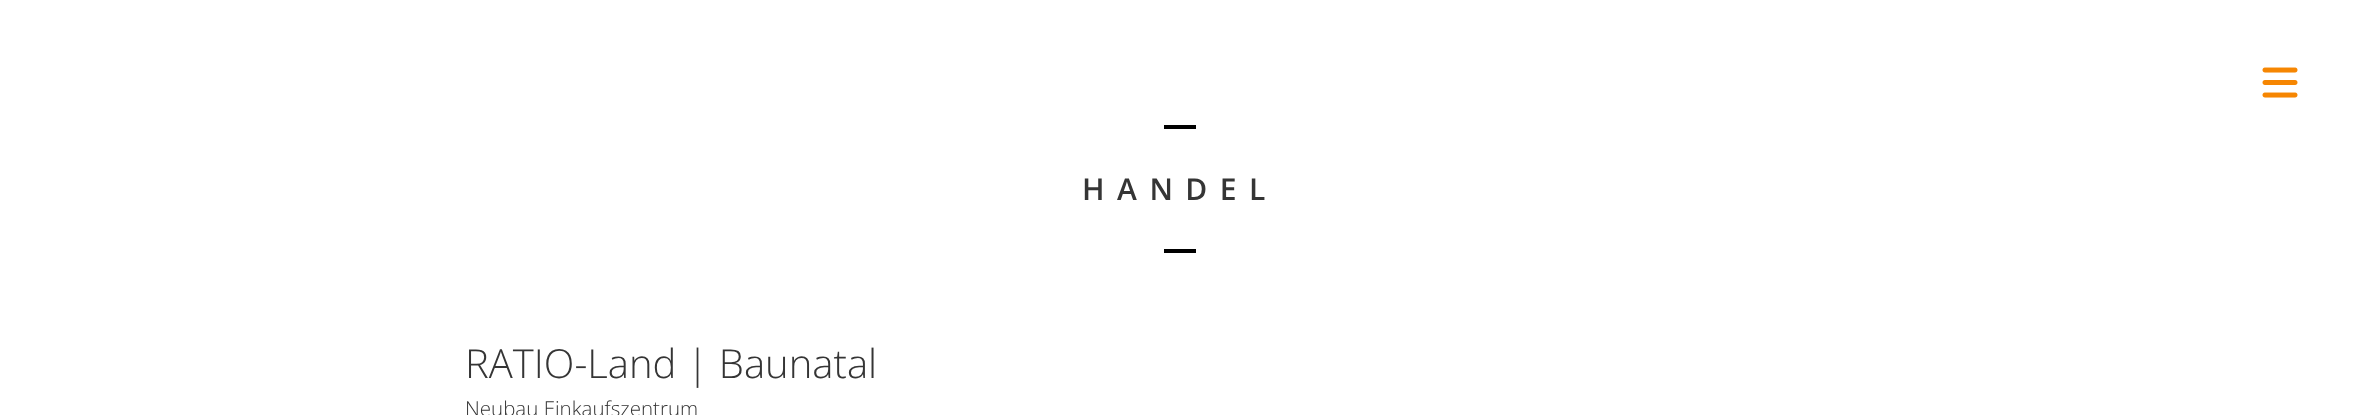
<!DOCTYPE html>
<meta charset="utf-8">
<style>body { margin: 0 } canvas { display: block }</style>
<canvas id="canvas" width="2359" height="415"></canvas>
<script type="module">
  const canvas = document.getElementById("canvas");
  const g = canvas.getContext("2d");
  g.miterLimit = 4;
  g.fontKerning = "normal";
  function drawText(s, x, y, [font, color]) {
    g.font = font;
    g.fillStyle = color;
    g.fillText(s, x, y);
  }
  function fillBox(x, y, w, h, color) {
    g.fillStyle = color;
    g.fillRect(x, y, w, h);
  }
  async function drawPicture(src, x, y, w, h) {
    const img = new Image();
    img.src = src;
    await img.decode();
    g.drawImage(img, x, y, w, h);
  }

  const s1 = ["600 30px Open Sans", "#353535"];
  const s2 = ["300 40px Open Sans", "#353535"];
  const s3 = ["300 20.5px Open Sans", "#353535"];

  fillBox(0, 0, 2359, 415, "#FFFFFF");
  await drawPicture("pic1.png", 2262, 67, 36, 31);
  fillBox(1164, 125, 32, 4, "#000000");
  g.letterSpacing = "12.5px";
  drawText("HANDEL", 1082, 200, s1);
  fillBox(1164, 249, 32, 4, "#000000");
  g.letterSpacing = "0px";
  drawText("RATIO-Land | Baunatal", 465, 378, s2);
  drawText("Neubau Einkaufszentrum", 465, 416, s3);
</script>
